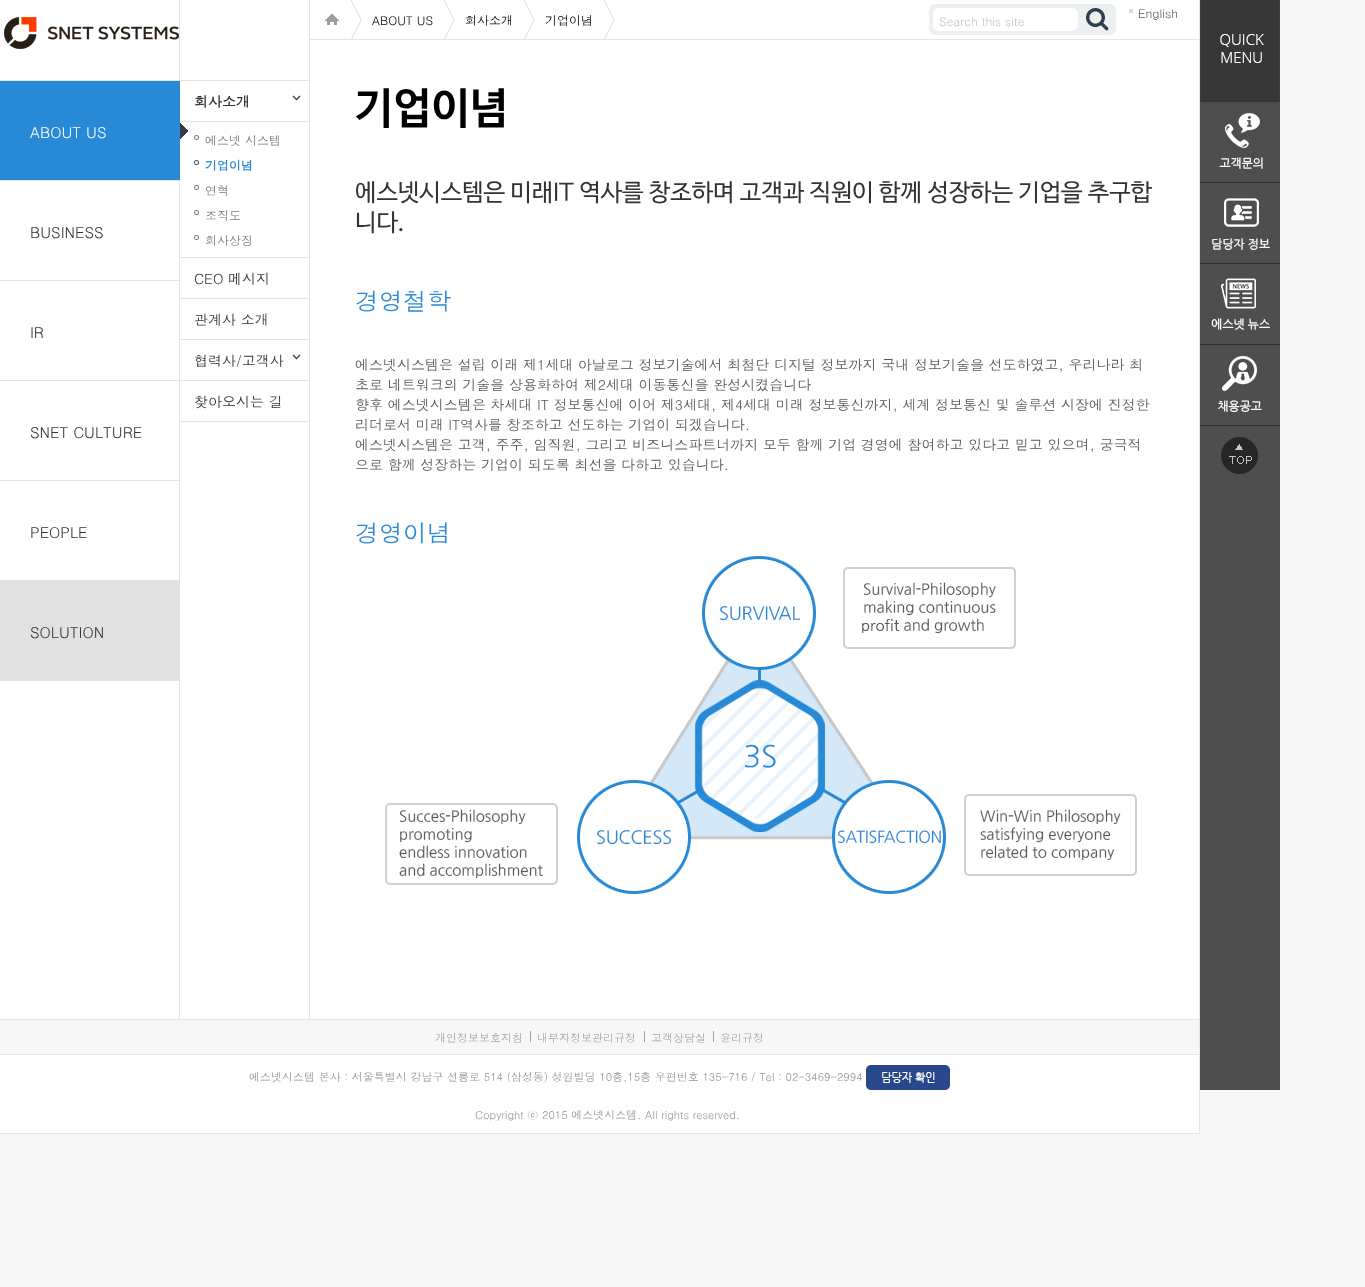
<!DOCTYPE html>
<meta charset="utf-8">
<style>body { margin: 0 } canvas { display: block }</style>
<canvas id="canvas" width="1365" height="1287"></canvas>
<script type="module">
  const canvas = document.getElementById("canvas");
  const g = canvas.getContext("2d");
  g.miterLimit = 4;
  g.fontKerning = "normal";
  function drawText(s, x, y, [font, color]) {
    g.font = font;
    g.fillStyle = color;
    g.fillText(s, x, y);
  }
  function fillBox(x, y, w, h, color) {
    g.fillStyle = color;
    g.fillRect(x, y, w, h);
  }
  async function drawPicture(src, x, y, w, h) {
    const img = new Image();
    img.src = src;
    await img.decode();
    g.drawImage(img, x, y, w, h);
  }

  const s1 = ["15px Dotum", "#FFFFFF"];
  const s2 = ["bold 14px Dotum", "#333333"];
  const s3 = ["12px Dotum", "#777777"];
  const s4 = ["bold 12px Dotum", "#288AD6"];
  const s5 = ["14px Dotum", "#333333"];
  const s6 = ["15px Dotum", "#333333"];
  const s7 = ["12px Dotum", "#000000"];
  const s8 = ["12px Dotum", "#595959"];
  const s9 = ["12px Dotum", "#BEC3C7"];
  const s10 = ["bold 43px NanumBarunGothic", "#000000"];
  const s11 = ["24px NanumBarunGothic", "#333333"];
  const s12 = ["24px Dotum", "#288AD6"];
  const s13 = ["14px Dotum", "#595959"];
  const s14 = ["11px Dotum", "#A4A4A4"];
  const s15 = ["11px Dotum", "#939598"];

  fillBox(0, 0, 1365, 1287, "#F7F7F7");
  await drawPicture("pic1.png", 0, 0, 310, 1019);
  await drawPicture("pic2.png", 4, 17, 175, 32);
  fillBox(0, 81, 180, 99, "#288AD6");
  fillBox(0, 80, 310, 1, "#E5E5E5");
  drawText("ABOUT US", 30, 138, s1);
  await drawPicture("pic3.png", 180, 123, 8, 16);
  fillBox(180, 421, 130, 1, "#E5E5E5");
  drawText("회사소개", 194, 107, s2);
  await drawPicture("pic4.png", 292, 95, 9, 6);
  fillBox(180, 121, 129, 1, "#E5E5E5");
  await drawPicture("pic5.png", 194, 135, 5, 5);
  drawText("에스넷 시스템", 205, 145, s3);
  await drawPicture("pic6.png", 194, 160, 5, 5);
  drawText("기업이념", 205, 170, s4);
  await drawPicture("pic5.png", 194, 185, 5, 5);
  drawText("연혁", 205, 195, s3);
  await drawPicture("pic5.png", 194, 210, 5, 5);
  drawText("조직도", 205, 220, s3);
  await drawPicture("pic5.png", 194, 235, 5, 5);
  drawText("회사상징", 205, 245, s3);
  fillBox(180, 257, 130, 1, "#E5E5E5");
  drawText("CEO 메시지", 194, 284, s5);
  fillBox(180, 298, 130, 1, "#E5E5E5");
  drawText("관계사 소개", 194, 325, s5);
  fillBox(180, 339, 130, 1, "#E5E5E5");
  drawText("협력사/고객사", 194, 366, s5);
  await drawPicture("pic4.png", 292, 354, 9, 6);
  drawText("찾아오시는 길", 194, 407, s5);
  fillBox(0, 180, 180, 1, "#E5E5E5");
  drawText("BUSINESS", 30, 238, s6);
  fillBox(0, 280, 180, 1, "#E5E5E5");
  drawText("IR", 30, 338, s6);
  fillBox(0, 380, 310, 1, "#E5E5E5");
  drawText("SNET CULTURE", 30, 438, s6);
  fillBox(0, 480, 180, 1, "#E5E5E5");
  drawText("PEOPLE", 30, 538, s6);
  fillBox(0, 581, 180, 99, "#E1E1E1");
  fillBox(0, 580, 180, 1, "#E5E5E5");
  fillBox(0, 680, 180, 1, "#E5E5E5");
  drawText("SOLUTION", 30, 638, s6);
  fillBox(310, 0, 889, 1019, "#FFFFFF");
  fillBox(1199, 0, 1, 1019, "#E5E5E5");
  fillBox(310, 39, 889, 1, "#E5E5E5");
  await drawPicture("pic7.png", 325, 14, 14, 11);
  await drawPicture("pic8.png", 350, 0, 12, 39);
  drawText("ABOUT US", 372, 25, s7);
  await drawPicture("pic8.png", 443, 0, 12, 39);
  drawText("회사소개", 465, 25, s7);
  await drawPicture("pic8.png", 523, 0, 12, 39);
  drawText("기업이념", 545, 25, s7);
  await drawPicture("pic8.png", 603, 0, 12, 39);
  fillBox(1129, 9, 4, 4, "#D8D8D8");
  drawText("English", 1138, 18, s8);
  await drawPicture("pic9.png", 929, 4, 187, 31);
  drawText("Search this site", 939, 26, s9);
  drawText("기업이념", 355, 122, s10);
  drawText("에스넷시스템은 미래IT 역사를 창조하며 고객과 직원이 함께 성장하는 기업을 추구합", 355, 200, s11);
  drawText("니다.", 355, 230, s11);
  drawText("경영철학", 355, 310, s12);
  drawText("에스넷시스템은 설립 이래 제1세대 아날로그 정보기술에서 최첨단 디지털 정보까지 국내 정보기술을 선도하였고, 우리나라 최", 355, 370, s13);
  drawText("초로 네트워크의 기술을 상용화하여 제2세대 이동통신을 완성시켰습니다", 355, 390, s13);
  drawText("향후 에스넷시스템은 차세대 IT 정보통신에 이어 제3세대, 제4세대 미래 정보통신까지, 세계 정보통신 및 솔루션 시장에 진정한", 355, 410, s13);
  drawText("리더로서 미래 IT역사를 창조하고 선도하는 기업이 되겠습니다.", 355, 430, s13);
  drawText("에스넷시스템은 고객, 주주, 임직원, 그리고 비즈니스파트너까지 모두 함께 기업 경영에 참여하고 있다고 믿고 있으며, 궁극적", 355, 450, s13);
  drawText("으로 함께 성장하는 기업이 되도록 최선을 다하고 있습니다.", 355, 470, s13);
  drawText("경영이념", 355, 542, s12);
  await drawPicture("pic10.png", 385, 556, 752, 338);
  fillBox(0, 1019, 1200, 1, "#E5E5E5");
  fillBox(1199, 1020, 1, 114, "#E5E5E5");
  fillBox(0, 1054, 1200, 1, "#E5E5E5");
  drawText("개인정보보호지침", 435, 1042, s14);
  fillBox(530, 1031, 1, 11, "#A4A4A4");
  drawText("내부자정보관리규정", 537, 1042, s14);
  fillBox(644, 1031, 1, 11, "#A4A4A4");
  drawText("고객상담실", 651, 1042, s14);
  fillBox(713, 1031, 1, 11, "#A4A4A4");
  drawText("윤리규정", 720, 1042, s14);
  fillBox(0, 1055, 1199, 78, "#FFFFFF");
  fillBox(0, 1133, 1200, 1, "#E5E5E5");
  drawText("에스넷시스템 본사 : 서울특별시 강남구 선릉로 514 (삼성동) 성원빌딩 10층,15층 우편번호 135-716 / Tel : 02-3469-2994", 249, 1081, s15);
  await drawPicture("pic11.png", 866, 1065, 84, 25);
  drawText("Copyright ⓒ 2015 에스넷시스템. All rights reserved.", 475, 1119, s15);
  fillBox(1200, 102, 80, 988, "#4E4E4E");
  await drawPicture("pic12.png", 1200, 0, 80, 102);
  await drawPicture("pic13.png", 1200, 113, 80, 70);
  await drawPicture("pic14.png", 1200, 198, 80, 66);
  await drawPicture("pic15.png", 1200, 278, 80, 67);
  await drawPicture("pic16.png", 1200, 356, 80, 70);
  await drawPicture("pic17.png", 1221, 437, 37, 37);
</script>
